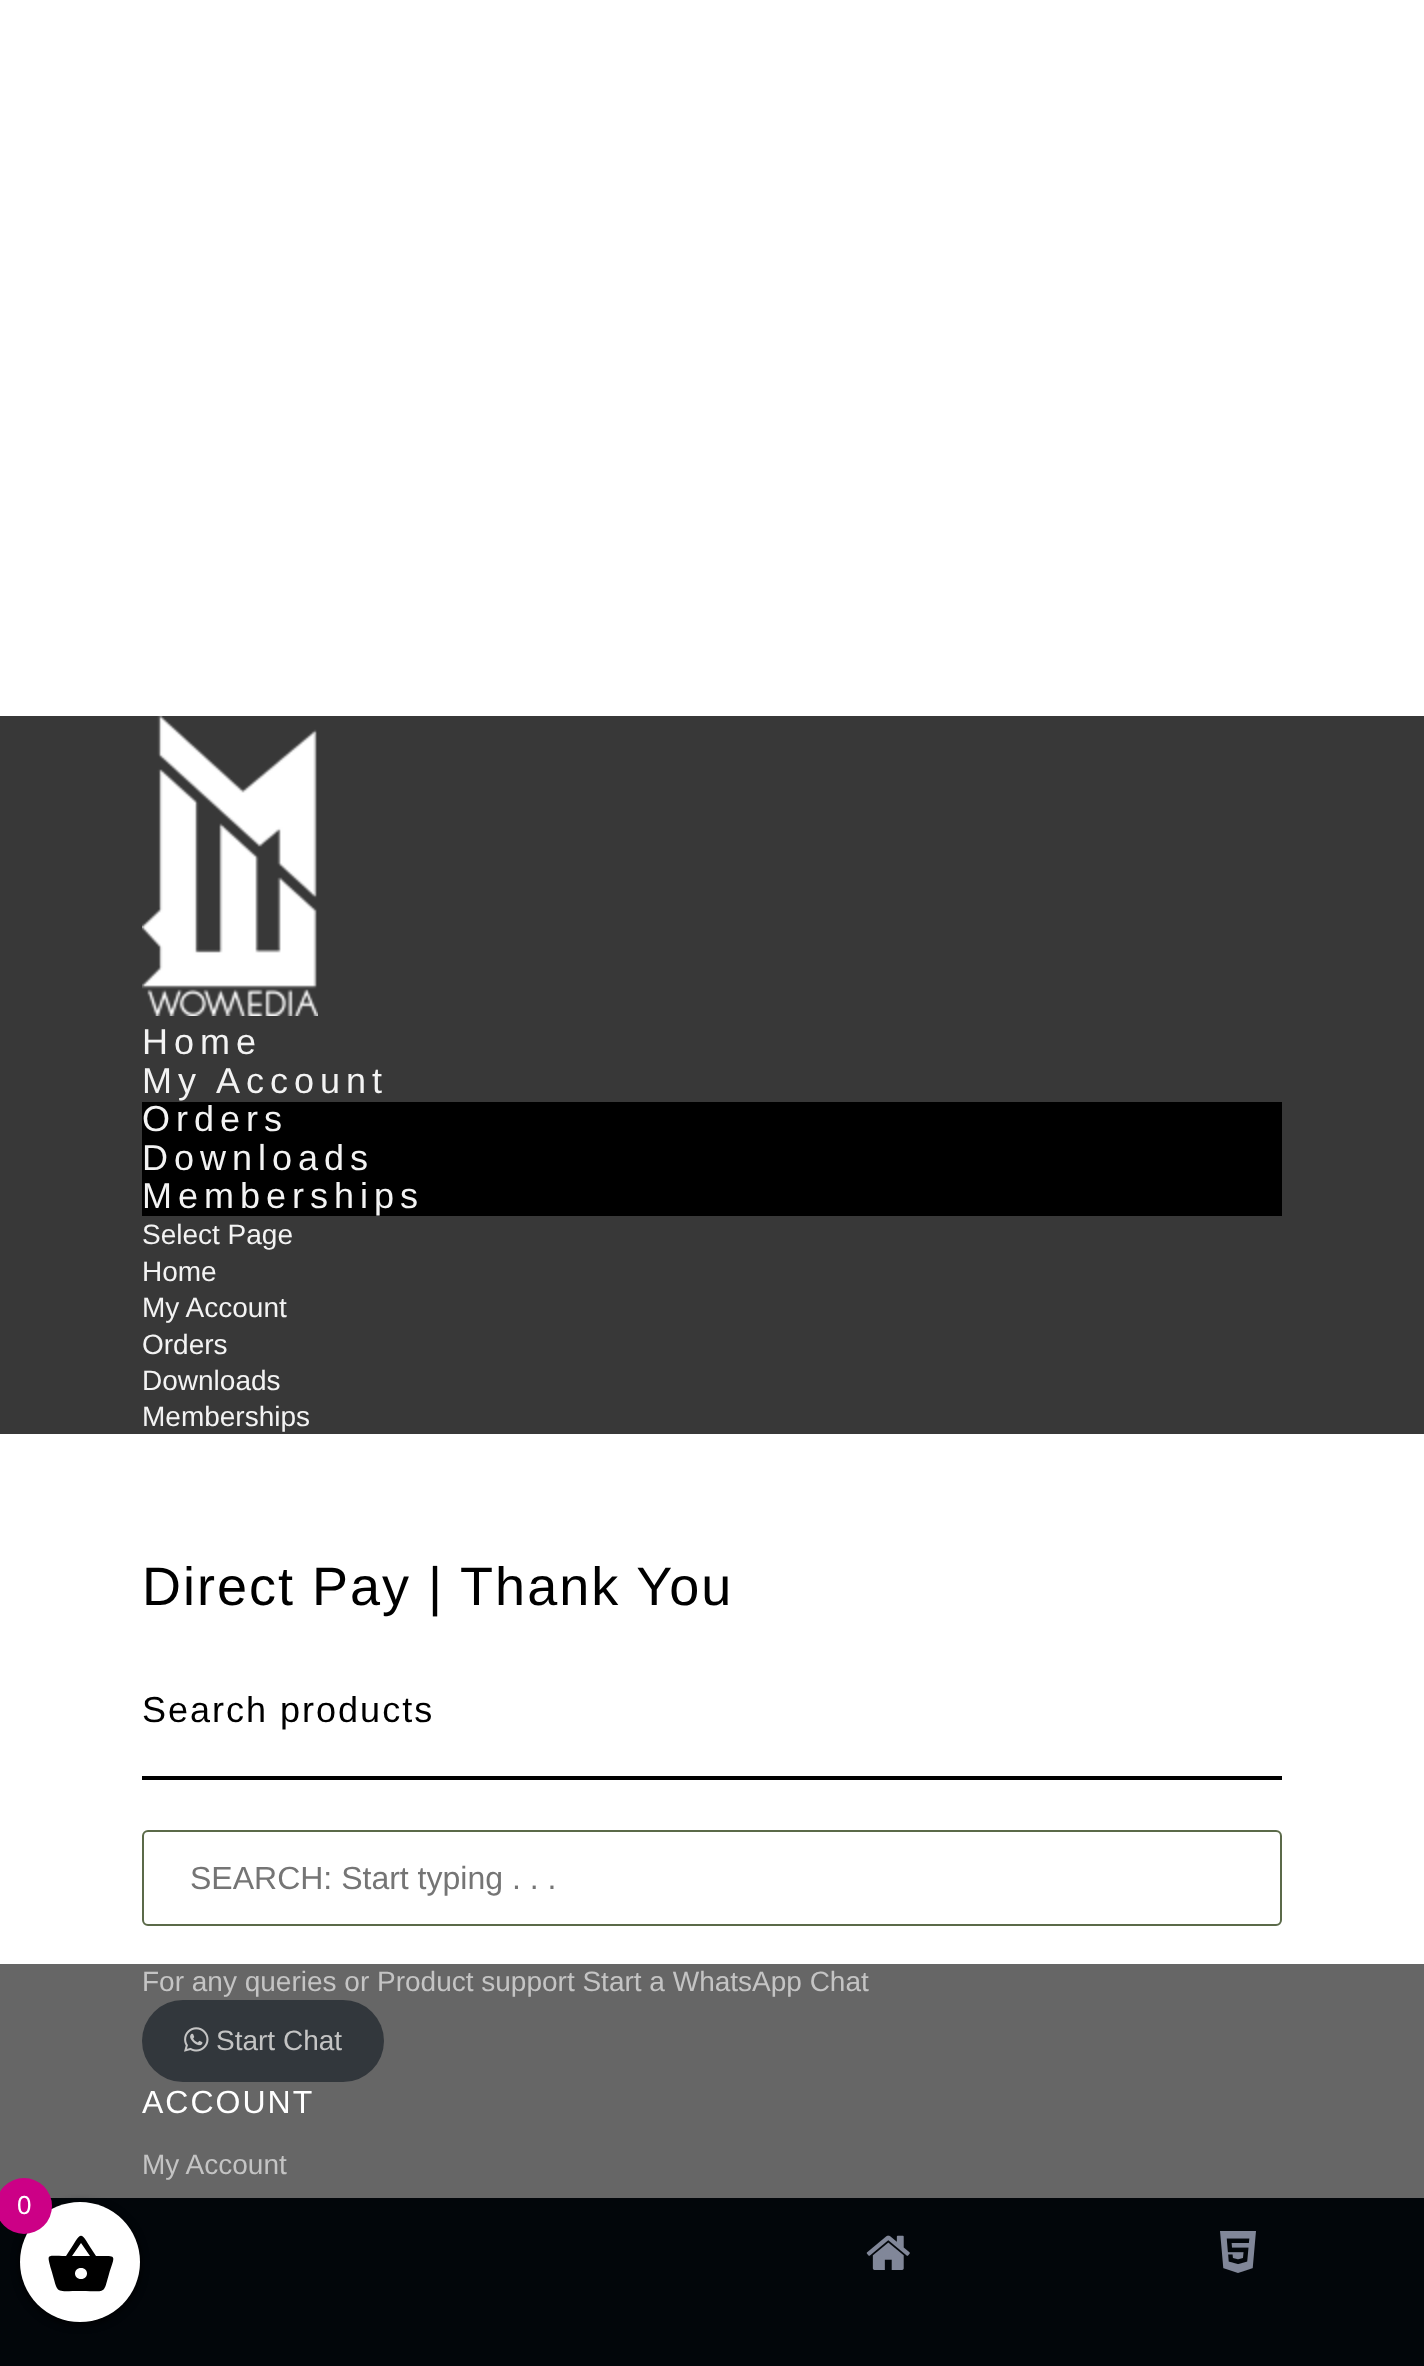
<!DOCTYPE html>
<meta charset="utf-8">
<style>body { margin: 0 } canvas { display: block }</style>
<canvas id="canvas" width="1424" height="2366"></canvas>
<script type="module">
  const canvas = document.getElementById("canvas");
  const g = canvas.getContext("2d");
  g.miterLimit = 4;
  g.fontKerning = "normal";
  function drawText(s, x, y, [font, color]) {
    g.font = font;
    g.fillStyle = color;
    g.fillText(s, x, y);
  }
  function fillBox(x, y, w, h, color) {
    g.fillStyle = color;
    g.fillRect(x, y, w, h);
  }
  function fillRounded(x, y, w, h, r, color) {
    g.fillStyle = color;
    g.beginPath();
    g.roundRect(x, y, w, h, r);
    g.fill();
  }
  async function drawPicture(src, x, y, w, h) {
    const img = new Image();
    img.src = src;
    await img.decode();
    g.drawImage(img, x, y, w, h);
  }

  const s1 = ["36px Liberation Sans", "#F3F3F3"];
  const s2 = ["28px Liberation Sans", "#F3F3F3"];
  const s3 = ["54px Liberation Sans", "#000000"];
  const s4 = ["36px Liberation Sans", "#000000"];
  const s5 = ["32px Liberation Sans", "#757575"];
  const s6 = ["28px Liberation Sans", "#C4C4C4"];
  const s7 = ["32px Liberation Sans", "#FFFFFF"];
  const s8 = ["26px Liberation Sans", "#FFFFFF"];

  fillBox(0, 0, 1424, 2366, "#FFFFFF");
  fillBox(0, 716, 1424, 718, "#383838");
  await drawPicture("pic1.png", 142, 716, 176, 300);
  g.letterSpacing = "6px";
  drawText("Home", 142, 1054, s1);
  drawText("My Account", 142, 1093, s1);
  fillBox(142, 1102, 1140, 114, "#000000");
  drawText("Orders", 142, 1131, s1);
  drawText("Downloads", 142, 1170, s1);
  drawText("Memberships", 142, 1208, s1);
  g.letterSpacing = "0px";
  drawText("Select Page", 142, 1244, s2);
  drawText("Home", 142, 1281, s2);
  drawText("My Account", 142, 1317, s2);
  drawText("Orders", 142, 1354, s2);
  drawText("Downloads", 142, 1390, s2);
  drawText("Memberships", 142, 1426, s2);
  g.letterSpacing = "2px";
  drawText("Direct Pay | Thank You", 142, 1605, s3);
  fillBox(142, 1776, 1140, 4, "#000000");
  drawText("Search products", 142, 1722, s4);
  g.beginPath();
  g.roundRect(143, 1831, 1138, 94, 5);
  g.strokeStyle = "#5B6A49";
  g.lineWidth = 2;
  g.stroke();
  g.letterSpacing = "0px";
  drawText("SEARCH: Start typing . . .", 190, 1889, s5);
  fillBox(0, 1964, 1424, 234, "#666666");
  drawText("For any queries or Product support Start a WhatsApp Chat", 142, 1991, s6);
  fillRounded(142, 2000, 242, 82, 41, "#32373C");
  await drawPicture("pic2.png", 184, 2027, 25, 25);
  drawText("Start Chat", 216, 2050, s6);
  g.letterSpacing = "2px";
  drawText("ACCOUNT", 142, 2113, s7);
  g.letterSpacing = "0px";
  drawText("My Account", 142, 2174, s6);
  fillBox(0, 2198, 1424, 168, "#02060A");
  g.fillStyle = "#000000";
  g.filter = "blur(4px)";
  g.beginPath();
  g.roundRect(20, 2204, 120, 120, 60);
  g.fill();
  g.filter = "none";
  g.fillStyle = "#FFFFFF";
  g.beginPath();
  g.arc(80, 2262, 60, 0, Math.PI * 2);
  g.fill();
  g.fillStyle = "#CC0086";
  g.beginPath();
  g.arc(24, 2206, 28, 0, Math.PI * 2);
  g.fill();
  drawText("0", 17, 2214, s8);
  g.fillStyle = "#000000";
  g.beginPath();
  g.moveTo(81, 2279);
  g.bezierCurveTo(89, 2279, 89, 2268, 81, 2268);
  g.bezierCurveTo(73, 2268, 73, 2279, 81, 2279);
  g.closePath();
  g.moveTo(72, 2256);
  g.lineTo(90, 2256);
  g.lineTo(81, 2243);
  g.closePath();
  g.moveTo(96, 2256);
  g.bezierCurveTo(118, 2256, 115, 2254, 109, 2274);
  g.bezierCurveTo(103, 2295, 107, 2291, 81, 2291);
  g.bezierCurveTo(53, 2291, 59, 2295, 51, 2269);
  g.bezierCurveTo(47, 2253, 46, 2256, 66, 2256);
  g.bezierCurveTo(84, 2229, 78, 2229, 96, 2256);
  g.closePath();
  g.fill();
  await drawPicture("pic3.png", 866, 2235, 44, 35);
  await drawPicture("pic4.png", 1220, 2231, 36, 42);
</script>
